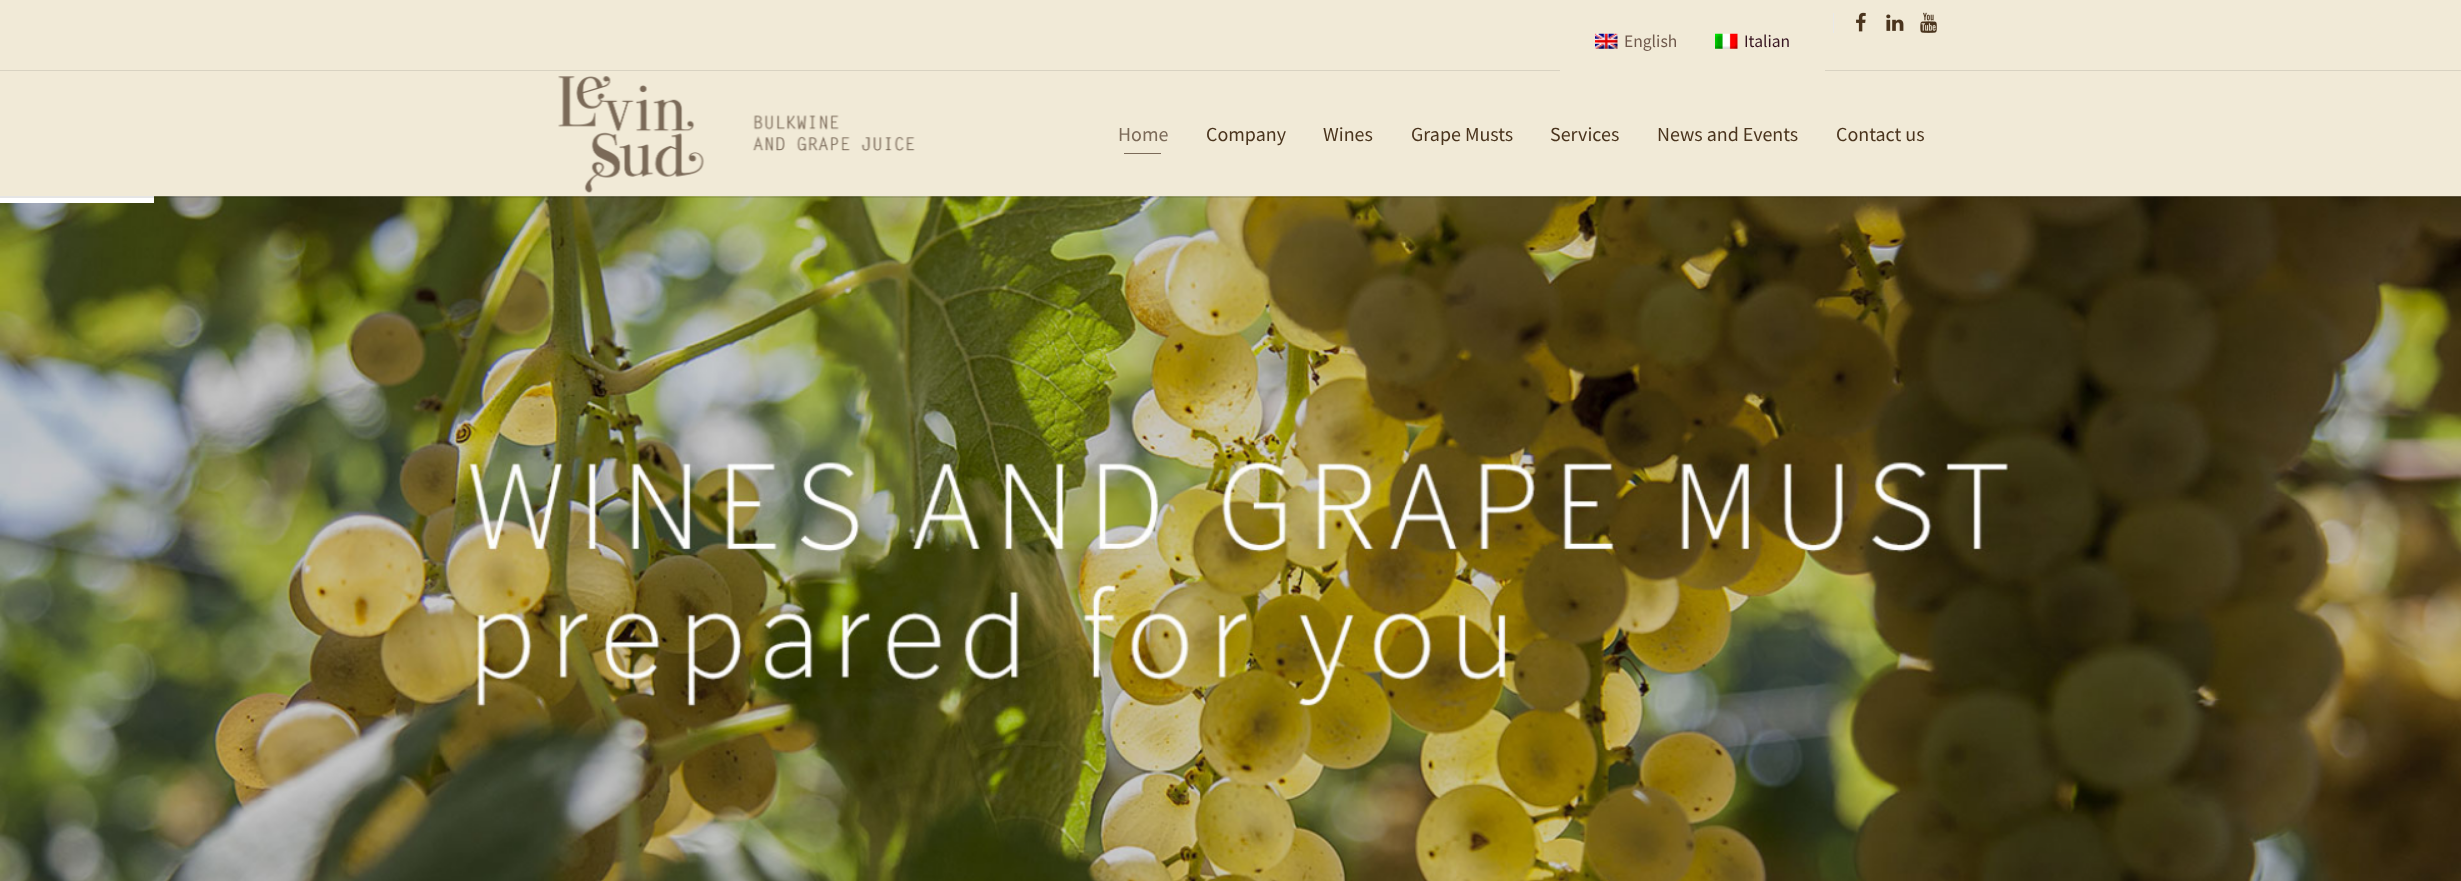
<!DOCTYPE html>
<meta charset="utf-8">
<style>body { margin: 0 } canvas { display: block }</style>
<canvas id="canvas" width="2461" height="881"></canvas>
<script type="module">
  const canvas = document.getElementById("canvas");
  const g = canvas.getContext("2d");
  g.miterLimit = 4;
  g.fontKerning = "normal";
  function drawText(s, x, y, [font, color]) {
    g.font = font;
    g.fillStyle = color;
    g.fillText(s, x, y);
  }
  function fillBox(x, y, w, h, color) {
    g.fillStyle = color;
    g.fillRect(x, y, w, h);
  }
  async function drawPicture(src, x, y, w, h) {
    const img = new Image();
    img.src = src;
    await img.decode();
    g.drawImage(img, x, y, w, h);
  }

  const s1 = ["17.5px Source Sans Pro", "#6F594C"];
  const s2 = ["17.5px Source Sans Pro", "#361420"];
  const s3 = ["20px Source Sans Pro", "#7B6A58"];
  const s4 = ["20px Source Sans Pro", "#4A341D"];

  fillBox(0, 0, 2461, 881, "#F1EAD7");
  fillBox(0, 70, 2461, 1, "#D9D3C2");
  fillBox(1833, 13, 1, 20, "#E9E9E9");
  await drawPicture("pic1.png", 1856, 12, 10, 20);
  await drawPicture("pic2.png", 1886, 14, 18, 17);
  await drawPicture("pic3.png", 1920, 12, 17, 21);
  g.strokeStyle = "#F1EAD7";
  g.strokeRect(1560.5, 0.5, 264, 70);
  await drawPicture("pic4.png", 1595, 33, 23, 16);
  drawText("English", 1624, 47, s1);
  await drawPicture("pic5.png", 1715, 33, 23, 16);
  drawText("Italian", 1744, 47, s2);
  await drawPicture("pic7.png", 0, 196, 2461, 685);
  fillBox(0, 196, 154, 7, "#FFFFFF");
  g.save();
  g.beginPath();
  g.rect(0, 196, 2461, 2);
  g.clip();
  g.fillStyle = "rgba(0, 0, 0, 0.1)";
  g.filter = "blur(0.5px)";
  g.beginPath();
  g.rect(0, 73, 2461, 125);
  g.fill();
  g.filter = "none";
  g.restore();
  await drawPicture("pic6.png", 558, 76, 357, 117);
  drawText("Home", 1118, 141, s3);
  fillBox(1124, 153, 37, 1, "#7B6A58");
  drawText("Company", 1206, 141, s4);
  drawText("Wines", 1323, 141, s4);
  drawText("Grape Musts", 1411, 141, s4);
  drawText("Services", 1550, 141, s4);
  drawText("News and Events", 1657, 141, s4);
  drawText("Contact us", 1836, 141, s4);
</script>
